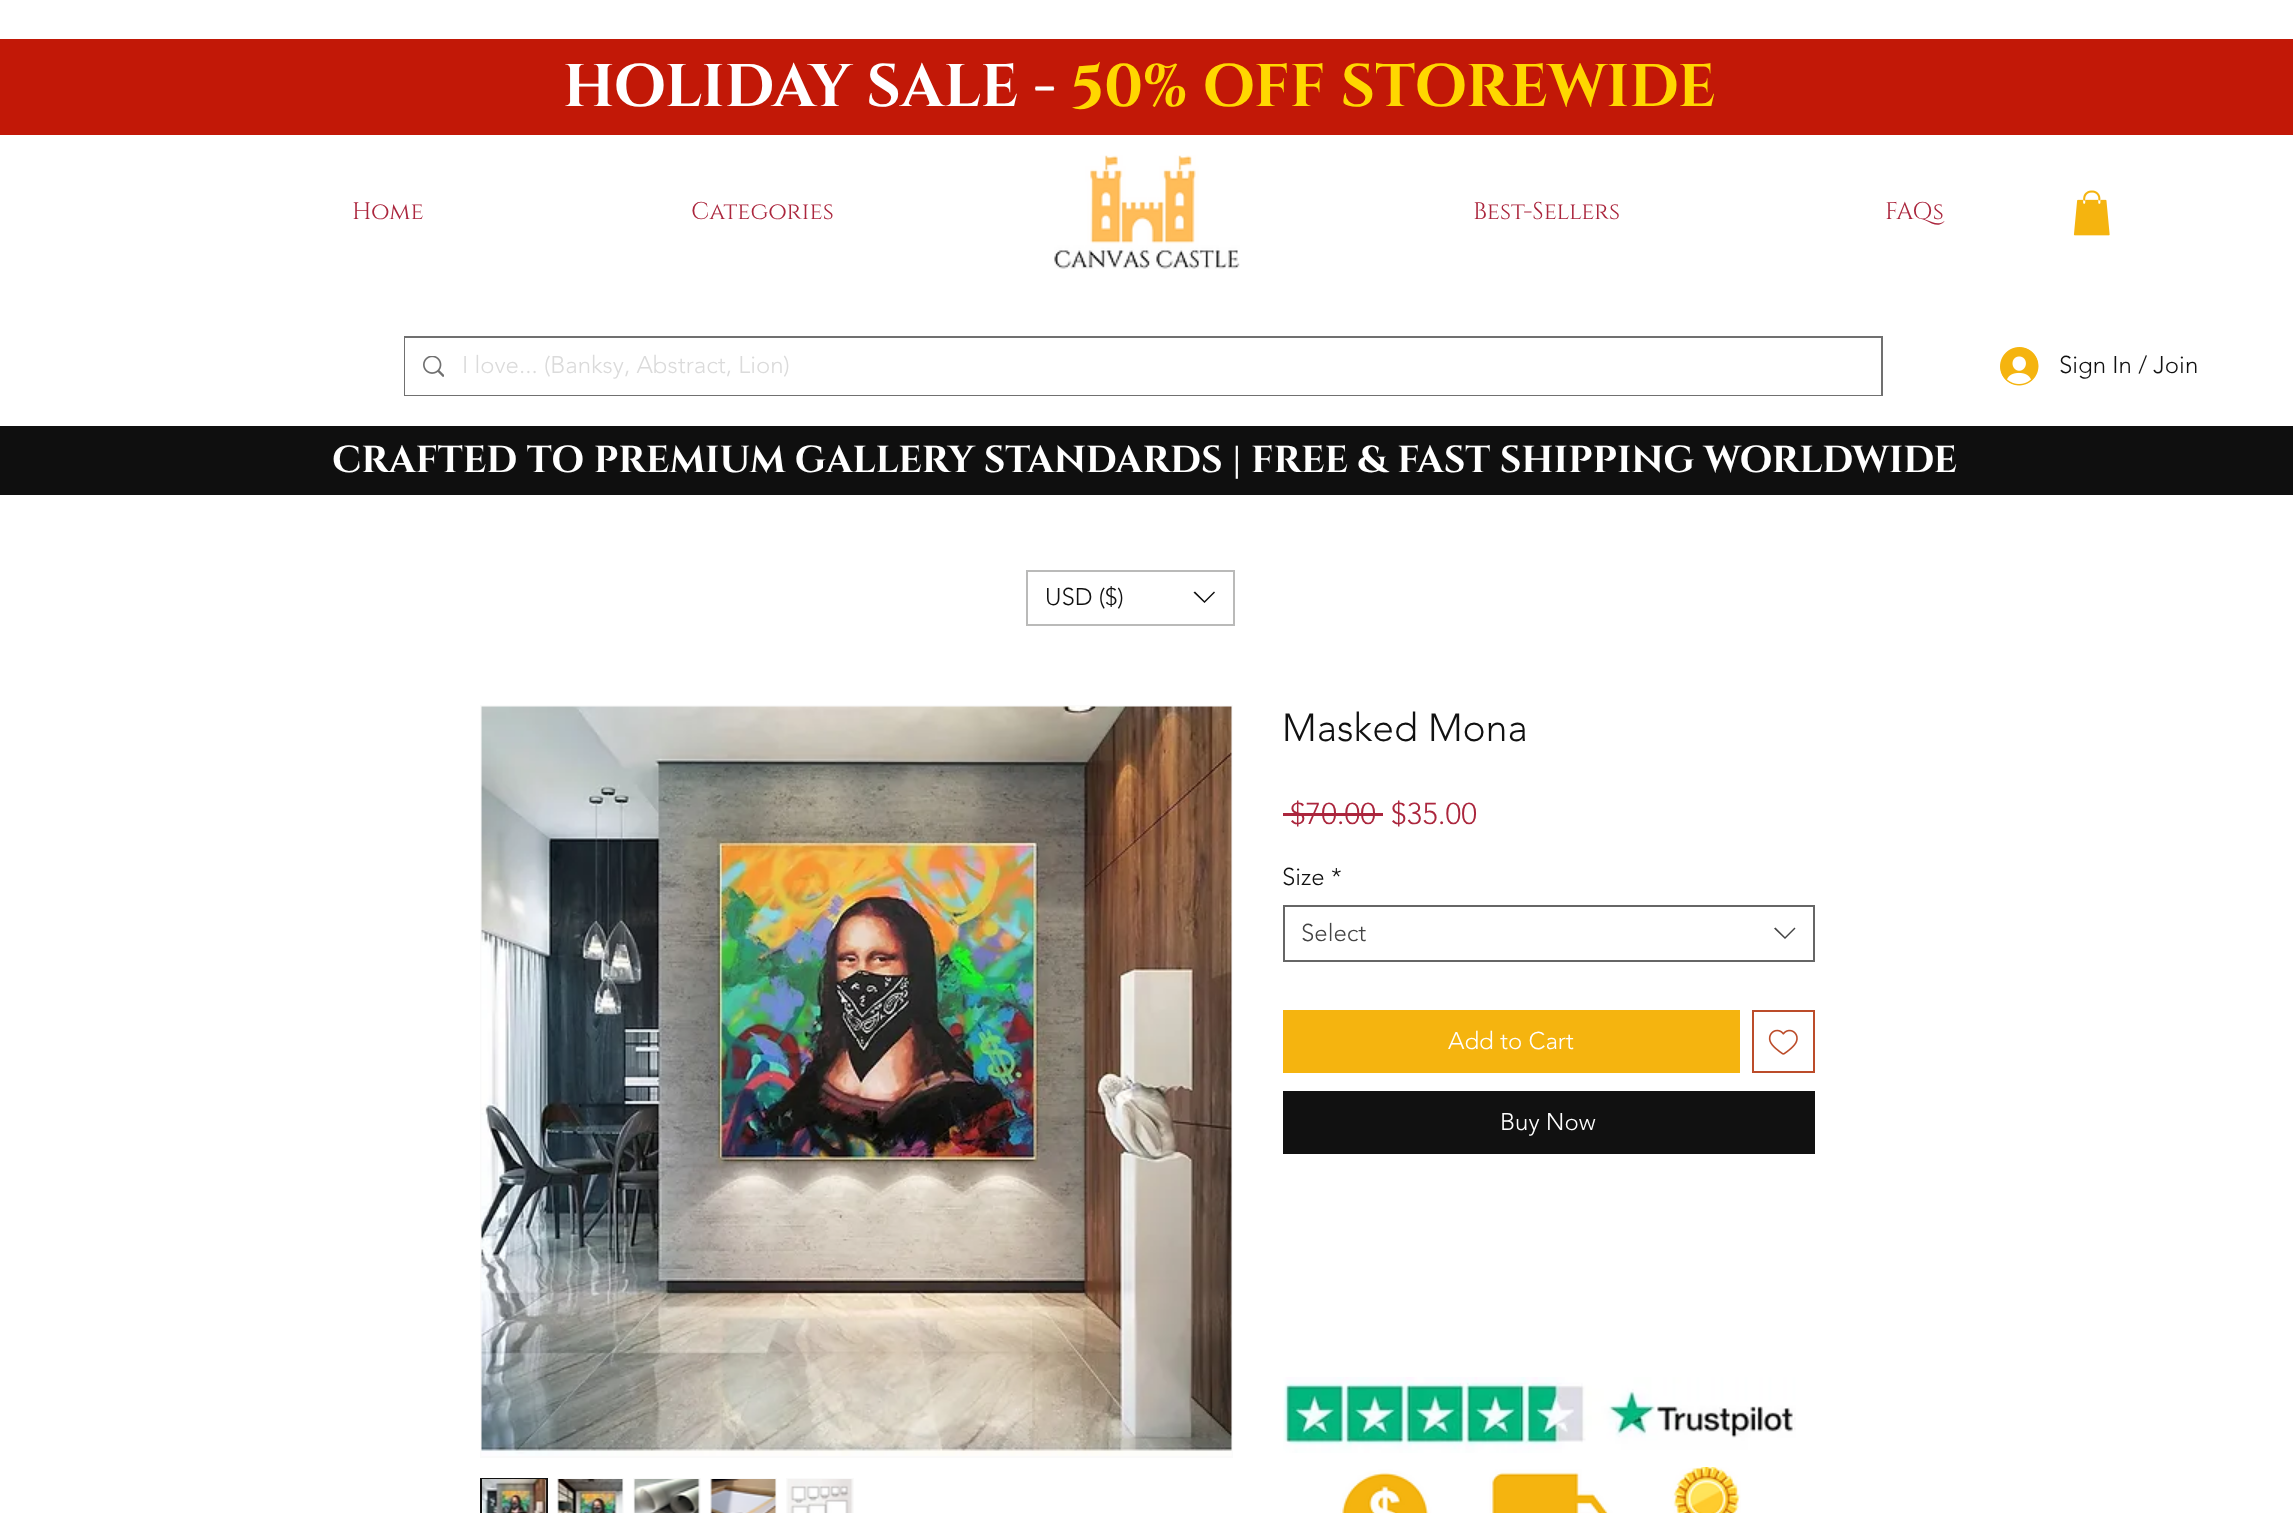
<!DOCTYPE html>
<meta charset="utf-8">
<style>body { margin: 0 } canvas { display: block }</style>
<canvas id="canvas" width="2293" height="1513"></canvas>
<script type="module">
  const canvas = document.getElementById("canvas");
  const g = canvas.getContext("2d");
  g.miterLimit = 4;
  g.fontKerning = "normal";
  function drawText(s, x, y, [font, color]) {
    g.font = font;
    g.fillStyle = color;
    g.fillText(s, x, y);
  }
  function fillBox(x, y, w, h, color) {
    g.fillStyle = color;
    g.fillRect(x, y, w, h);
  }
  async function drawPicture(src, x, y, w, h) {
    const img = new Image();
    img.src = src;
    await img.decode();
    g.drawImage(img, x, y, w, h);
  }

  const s1 = ["bold 60px Cinzel", "#FFFFFF"];
  const s2 = ["bold 60px Cinzel", "#FFD700"];
  const s3 = ["24px Cinzel", "#AB263D"];
  const s4 = ["300 24px 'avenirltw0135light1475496'", "#DBDBDB"];
  const s5 = ["300 24px 'avenirltw0135light1475496'", "#111111"];
  const s6 = ["bold 37.5px Cinzel", "#FFFFFF"];
  const s7 = ["300 39px 'avenirltw0135light1475496'", "#111111"];
  const s8 = ["300 30px 'avenirltw0135light1475496'", "#AB263D"];
  const s9 = ["300 24px 'avenirltw0135light1475496'", "#444444"];
  const s10 = ["300 24px 'avenirltw0135light1475496'", "#FFFFFF"];

  fillBox(0, 0, 2293, 1513, "#FFFFFF");
  fillBox(0, 39, 2293, 96, "#C21807");
  drawText("HOLIDAY SALE -", 563, 106, s1);
  drawText("50% OFF STOREWIDE", 1071, 106, s2);
  await drawPicture("pic1.png", 1054, 155, 186, 114);
  await drawPicture("pic2.png", 2073, 190, 37, 46);
  drawText("Home", 352, 219, s3);
  drawText("Categories", 691, 219, s3);
  drawText("Best-Sellers", 1473, 219, s3);
  drawText("FAQs", 1885, 219, s3);
  g.strokeStyle = "#707070";
  g.lineWidth = 2;
  g.strokeRect(405, 337, 1477, 58);
  fillBox(405, 338, 1476, 57, "#FFFFFF");
  await drawPicture("pic3.png", 423, 356, 21, 21);
  drawText("I love... (Banksy, Abstract, Lion)", 462, 373, s4);
  await drawPicture("pic4.png", 2000, 347, 39, 39);
  drawText("Sign In / Join", 2059, 373, s5);
  fillBox(0, 426, 2293, 69, "#0F0F0F");
  drawText("CRAFTED TO PREMIUM GALLERY STANDARDS | FREE & FAST SHIPPING WORLDWIDE", 332, 472, s6);
  g.strokeStyle = "#BABAB9";
  g.strokeRect(1027, 571, 207, 54);
  drawText("USD ($)", 1045, 605, s5);
  g.beginPath();
  g.moveTo(1214, 591.5);
  g.lineTo(1215, 592.5);
  g.lineTo(1204.5, 603);
  g.lineTo(1193.5, 592.5);
  g.lineTo(1195, 591.5);
  g.lineTo(1204.5, 601);
  g.closePath();
  g.fill("evenodd");
  g.strokeStyle = "#FAFAFA";
  g.strokeRect(481, 706, 751, 751);
  await drawPicture("pic5.png", 481, 706, 751, 750);
  fillBox(545, 1480, 1, 33, "#FAFAFA");
  g.strokeStyle = "#111111";
  g.strokeRect(481, 1479, 66, 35);
  await drawPicture("pic6.png", 482, 1479, 65, 34);
  fillBox(557, 1478, 67, 35, "#FAFAFA");
  await drawPicture("pic7.png", 557, 1479, 66, 34);
  fillBox(633, 1478, 68, 35, "#FAFAFA");
  await drawPicture("pic8.png", 634, 1479, 66, 34);
  fillBox(710, 1478, 67, 35, "#FAFAFA");
  await drawPicture("pic9.png", 710, 1479, 66, 34);
  fillBox(786, 1478, 68, 35, "#FAFAFA");
  await drawPicture("pic10.png", 787, 1479, 66, 34);
  drawText("Masked Mona", 1282, 741, s7);
  drawText("$70.00", 1290, 824, s8);
  fillBox(1283, 813, 100, 3, "#AB263D");
  drawText("$35.00", 1391, 824, s8);
  drawText("Size *", 1282, 885, s5);
  g.strokeStyle = "#666666";
  g.strokeRect(1284, 906, 530, 55);
  drawText("Select", 1301, 941, s9);
  g.beginPath();
  g.moveTo(1794.5, 927.5);
  g.lineTo(1795.5, 928.5);
  g.lineTo(1785, 939);
  g.lineTo(1774, 928.5);
  g.lineTo(1775.5, 927.5);
  g.lineTo(1785, 937);
  g.closePath();
  g.fill("evenodd");
  fillBox(1283, 1010, 457, 63, "#F5B40F");
  drawText("Add to Cart", 1448, 1049, s10);
  g.strokeStyle = "#BC4C2A";
  g.strokeRect(1753, 1011, 61, 61);
  await drawPicture("pic11.png", 1768, 1029, 30, 26);
  fillBox(1283, 1091, 532, 63, "#111111");
  drawText("Buy Now", 1500, 1130, s10);
  await drawPicture("pic12.png", 1283, 1377, 513, 76);
  await drawPicture("pic13.png", 1340, 1467, 401, 46);
</script>
